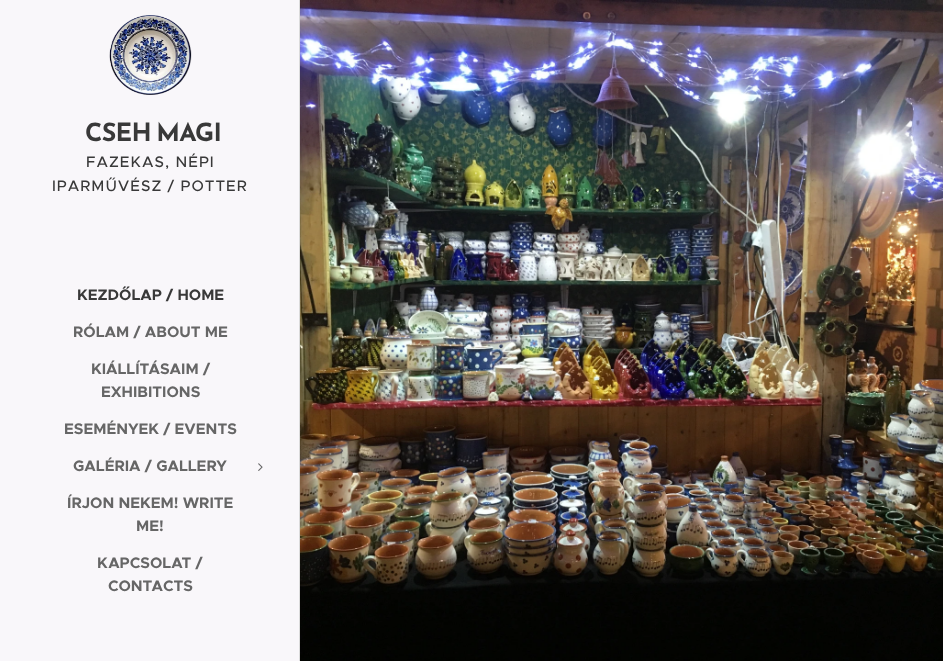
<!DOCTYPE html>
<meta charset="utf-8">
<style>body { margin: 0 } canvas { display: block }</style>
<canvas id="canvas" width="943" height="661"></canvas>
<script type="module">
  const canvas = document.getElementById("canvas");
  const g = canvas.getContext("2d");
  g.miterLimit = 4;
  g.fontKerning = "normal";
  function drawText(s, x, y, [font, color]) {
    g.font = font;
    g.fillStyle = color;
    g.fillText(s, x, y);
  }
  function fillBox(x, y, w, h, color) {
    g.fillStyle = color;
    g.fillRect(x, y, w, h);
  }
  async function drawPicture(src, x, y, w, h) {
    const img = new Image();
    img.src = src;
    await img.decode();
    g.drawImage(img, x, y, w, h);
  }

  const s1 = ["bold 25px Josefin Sans", "#393939"];
  const s2 = ["500 15.25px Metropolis", "#393939"];
  const s3 = ["bold 15.25px Metropolis", "#393939"];
  const s4 = ["bold 15.25px Metropolis", "#666666"];

  fillBox(0, 0, 943, 661, "#FFFFFF");
  fillBox(0, 0, 299, 661, "#F9F7FA");
  await drawPicture("pic1.png", 109, 15, 83, 80);
  g.letterSpacing = "-0.75px";
  g.wordSpacing = "-2px";
  drawText("CSEH MAGI", 85, 141, s1);
  g.letterSpacing = "1px";
  g.wordSpacing = "0px";
  drawText("FAZEKAS, NÉPI", 86, 167, s2);
  drawText("IPARMŰVÉSZ / POTTER", 52, 191, s2);
  g.letterSpacing = "0px";
  drawText("KEZDŐLAP / HOME", 77, 300, s3);
  drawText("RÓLAM / ABOUT ME", 73, 337, s4);
  drawText("KIÁLLÍTÁSAIM /", 91, 374, s4);
  drawText("EXHIBITIONS", 101, 397, s4);
  drawText("ESEMÉNYEK / EVENTS", 64, 434, s4);
  drawText("GALÉRIA / GALLERY", 73, 471, s4);
  await drawPicture("pic2.png", 258, 463, 5, 8);
  drawText("ÍRJON NEKEM! WRITE", 67, 508, s4);
  drawText("ME!", 136, 531, s4);
  drawText("KAPCSOLAT /", 97, 568, s4);
  drawText("CONTACTS", 108, 591, s4);
  fillBox(299, 0, 1, 661, "#DBDBDB");
  await drawPicture("pic3.png", 300, 0, 643, 661);
</script>
